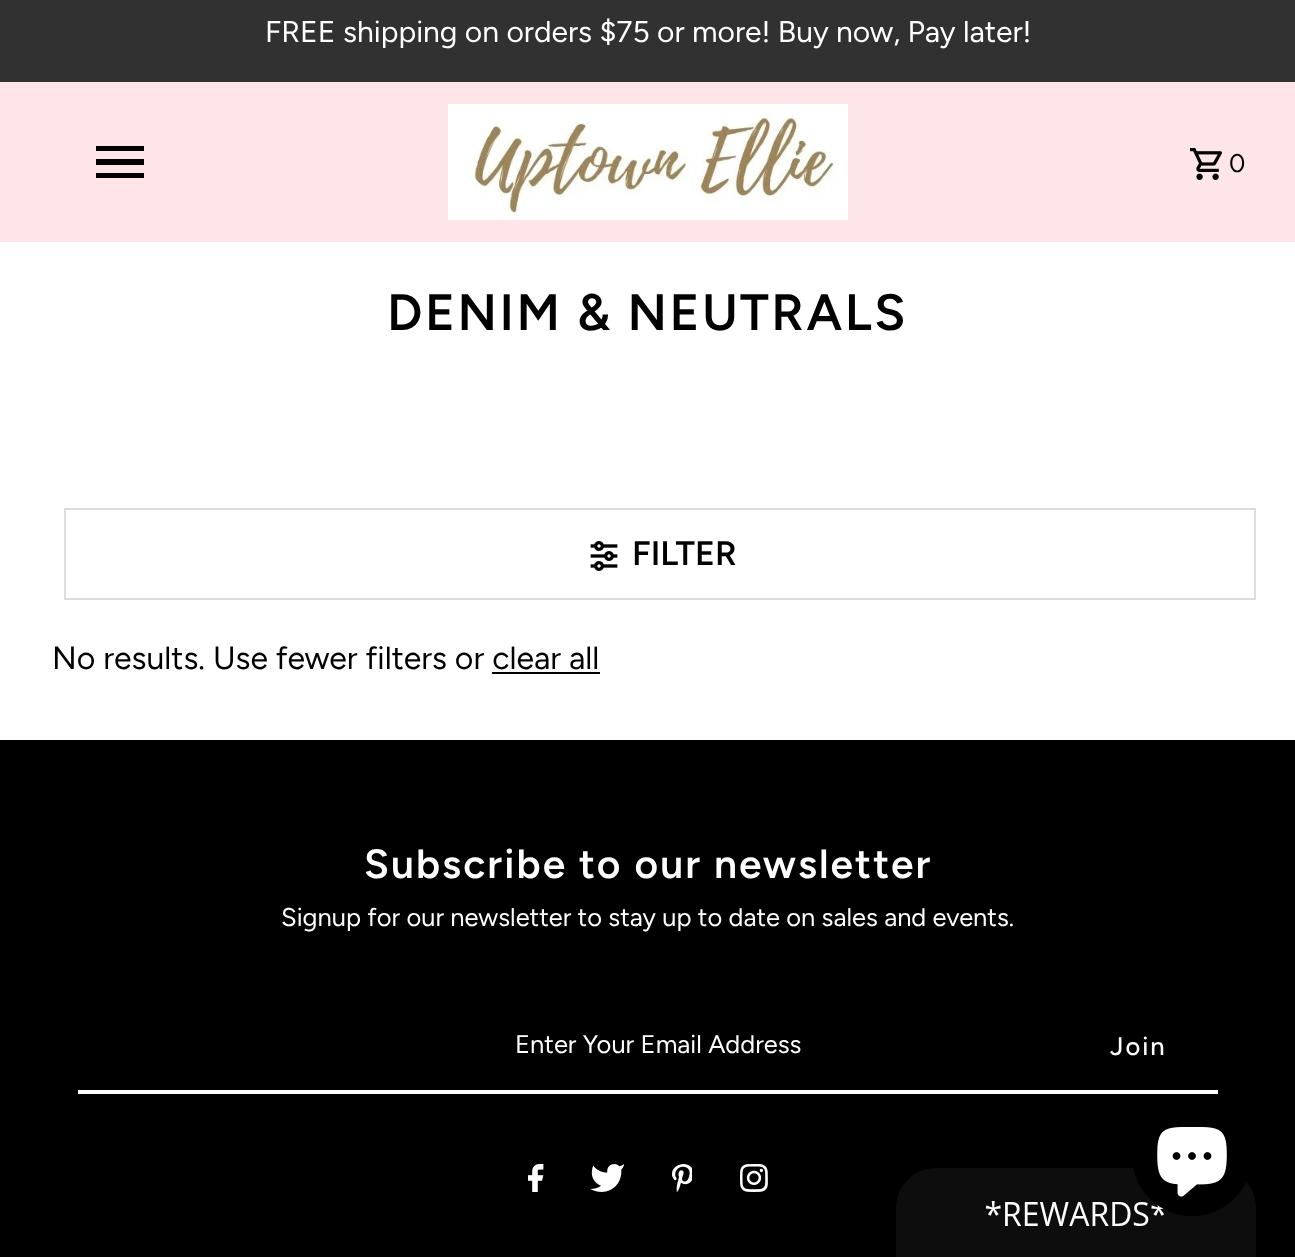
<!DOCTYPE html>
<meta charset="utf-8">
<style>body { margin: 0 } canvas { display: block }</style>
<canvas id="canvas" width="1295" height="1257"></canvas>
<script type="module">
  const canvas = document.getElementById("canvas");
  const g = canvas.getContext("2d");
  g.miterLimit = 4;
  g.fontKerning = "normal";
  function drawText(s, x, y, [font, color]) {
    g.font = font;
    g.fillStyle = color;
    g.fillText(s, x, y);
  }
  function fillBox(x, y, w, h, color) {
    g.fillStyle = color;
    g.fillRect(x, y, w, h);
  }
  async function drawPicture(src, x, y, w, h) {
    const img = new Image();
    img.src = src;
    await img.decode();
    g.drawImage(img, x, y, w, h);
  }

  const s1 = ["30px Figtree", "#FFFFFF"];
  const s2 = ["25.5px Figtree", "#000000"];
  const s3 = ["600 51px Figtree", "#000000"];
  const s4 = ["600 34px Figtree", "#000000"];
  const s5 = ["32px Figtree", "#000000"];
  const s6 = ["600 40.75px Figtree", "#FFFFFF"];
  const s7 = ["25.5px Figtree", "#FFFFFF"];
  const s8 = ["500 25.5px Figtree", "#FFFFFF"];

  fillBox(0, 0, 1295, 1257, "#FFFFFF");
  fillBox(0, 0, 1295, 82, "#313131");
  drawText("FREE shipping on orders $75 or more! Buy now, Pay later!", 265, 42, s1);
  fillBox(0, 82, 1295, 160, "#FEE5E8");
  fillBox(96, 173, 48, 5, "#000000");
  fillBox(96, 159, 48, 6, "#000000");
  fillBox(96, 146, 48, 5, "#000000");
  await drawPicture("pic1.png", 448, 104, 400, 116);
  await drawPicture("pic2.png", 1190, 148, 32, 32);
  g.letterSpacing = "2px";
  drawText("0", 1229, 172, s2);
  g.letterSpacing = "2.5px";
  drawText("DENIM & NEUTRALS", 387, 330, s3);
  g.strokeStyle = "#DDDDDD";
  g.lineWidth = 2;
  g.strokeRect(65, 509, 1190, 90);
  await drawPicture("pic3.png", 590, 541, 28, 30);
  g.letterSpacing = "0px";
  drawText("FILTER", 632, 565, s4);
  drawText("No results. Use fewer filters or clear all", 52, 669, s5);
  fillBox(492, 672, 108, 2, "#000000");
  fillBox(0, 740, 1295, 517, "#000000");
  g.letterSpacing = "2.05px";
  drawText("Subscribe to our newsletter", 364, 878, s6);
  g.letterSpacing = "0px";
  drawText("Signup for our newsletter to stay up to date on sales and events.", 281, 926, s7);
  fillBox(78, 1090, 1140, 4, "#FFFFFF");
  drawText("Enter Your Email Address", 515, 1053, s7);
  g.letterSpacing = "2px";
  drawText("Join", 1110, 1055, s8);
  await drawPicture("pic4.png", 528, 1164, 16, 28);
  await drawPicture("pic5.png", 590, 1164, 34, 28);
  await drawPicture("pic6.png", 672, 1164, 20, 28);
  await drawPicture("pic7.png", 740, 1164, 28, 28);
  await drawPicture("pic9.png", 896, 1168, 360, 89);
  g.fillStyle = "#000000";
  g.beginPath();
  g.arc(1192, 1156, 60, 0, Math.PI * 2);
  g.fill();
  await drawPicture("pic8.png", 1157, 1127, 70, 70);
</script>
